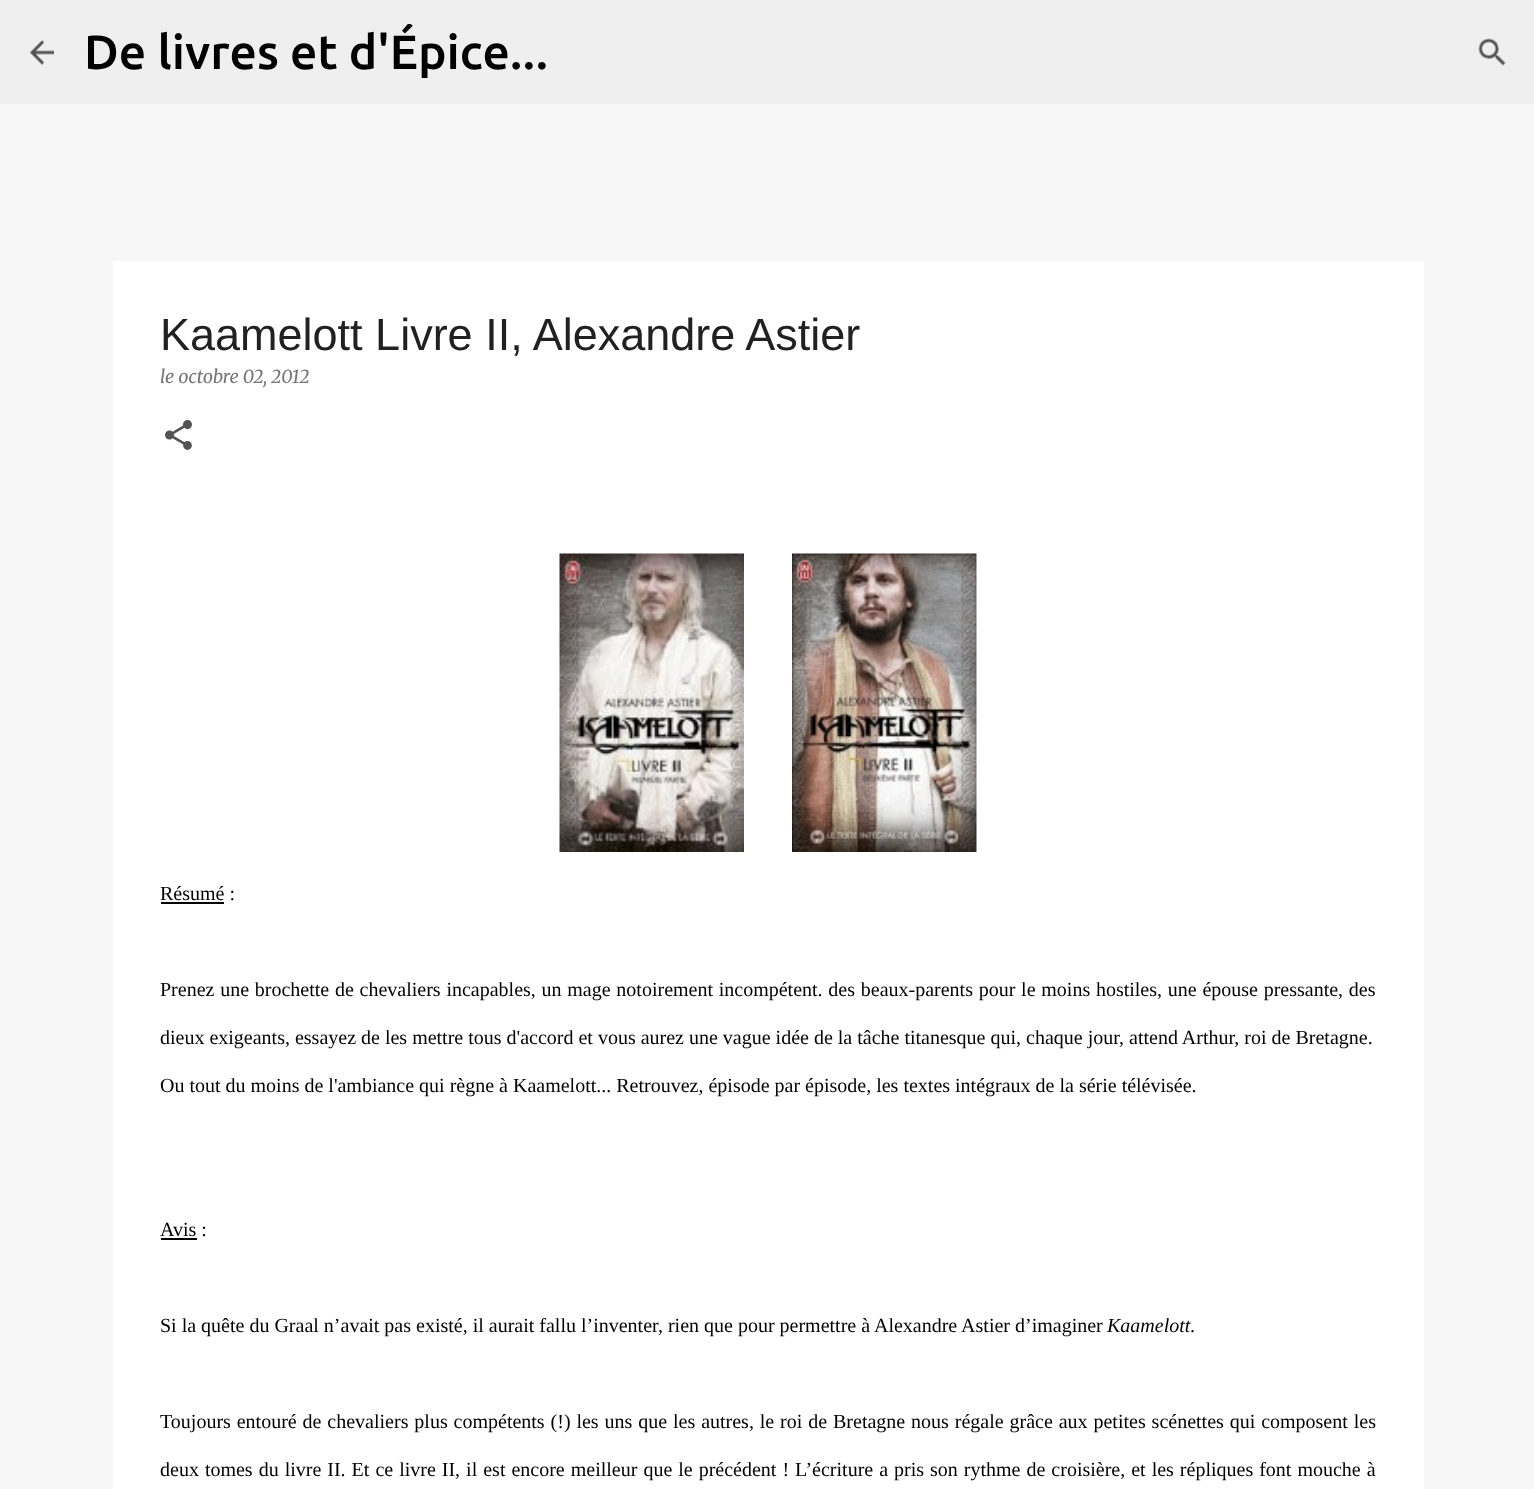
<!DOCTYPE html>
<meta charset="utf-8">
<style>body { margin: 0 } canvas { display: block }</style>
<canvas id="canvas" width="1534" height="1489"></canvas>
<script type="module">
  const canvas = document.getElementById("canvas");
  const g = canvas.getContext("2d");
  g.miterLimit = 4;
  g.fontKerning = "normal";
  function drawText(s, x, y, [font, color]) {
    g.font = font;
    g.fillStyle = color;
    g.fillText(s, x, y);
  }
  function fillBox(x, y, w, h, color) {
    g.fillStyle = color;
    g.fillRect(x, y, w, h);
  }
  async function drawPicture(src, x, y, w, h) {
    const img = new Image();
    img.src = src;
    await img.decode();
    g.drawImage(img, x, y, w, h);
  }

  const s1 = ["500 48px Ubuntu", "#000000"];
  const s2 = ["45px Liberation Sans", "#212121"];
  const s3 = ["italic 300 18px Merriweather", "#757575"];
  const s4 = ["20px Liberation Serif", "#000000"];
  const s5 = ["italic 20px Liberation Serif", "#000000"];

  fillBox(0, 0, 1534, 1489, "#F7F7F7");
  fillBox(0, 0, 1534, 104, "#EFEFEF");
  await drawPicture("pic1.png", 30, 40, 24, 25);
  g.save();
  g.beginPath();
  g.rect(84, 24, 464, 56);
  g.clip();
  drawText("De livres et d'Épice...", 84, 69, s1);
  g.restore();
  await drawPicture("pic2.png", 1478, 38, 28, 28);
  fillBox(113, 261, 1311, 1228, "#FFFFFF");
  drawText("Kaamelott Livre II, Alexandre Astier", 160, 350, s2);
  drawText("le octobre 02, 2012", 160, 383, s3);
  await drawPicture("pic3.png", 165, 420, 27, 30);
  await drawPicture("pic4.png", 559, 553, 185, 299);
  await drawPicture("pic5.png", 792, 553, 185, 299);
  drawText("Résumé :", 160, 900, s4);
  fillBox(161, 902, 63, 2, "#000000");
  g.wordSpacing = "0.75px";
  drawText("Prenez une brochette de chevaliers incapables, un mage notoirement incompétent. des beaux-parents pour le moins hostiles, une épouse pressante, des", 160, 996, s4);
  g.wordSpacing = "0px";
  drawText("dieux exigeants, essayez de les mettre tous d'accord et vous aurez une vague idée de la tâche titanesque qui, chaque jour, attend Arthur, roi de Bretagne.", 160, 1044, s4);
  drawText("Ou tout du moins de l'ambiance qui règne à Kaamelott... Retrouvez, épisode par épisode, les textes intégraux de la série télévisée.", 160, 1092, s4);
  drawText("Avis :", 160, 1236, s4);
  fillBox(161, 1238, 36, 2, "#000000");
  drawText("Si la quête du Graal n’avait pas existé, il aurait fallu l’inventer, rien que pour permettre à Alexandre Astier d’imaginer", 160, 1332, s4);
  drawText("Kaamelott", 1107, 1332, s5);
  drawText(".", 1190, 1332, s4);
  g.wordSpacing = "0.9px";
  drawText("Toujours entouré de chevaliers plus compétents (!) les uns que les autres, le roi de Bretagne nous régale grâce aux petites scénettes qui composent les", 160, 1428, s4);
  g.wordSpacing = "1px";
  drawText("deux tomes du livre II. Et ce livre II, il est encore meilleur que le précédent ! L’écriture a pris son rythme de croisière, et les répliques font mouche à", 160, 1476, s4);
</script>
